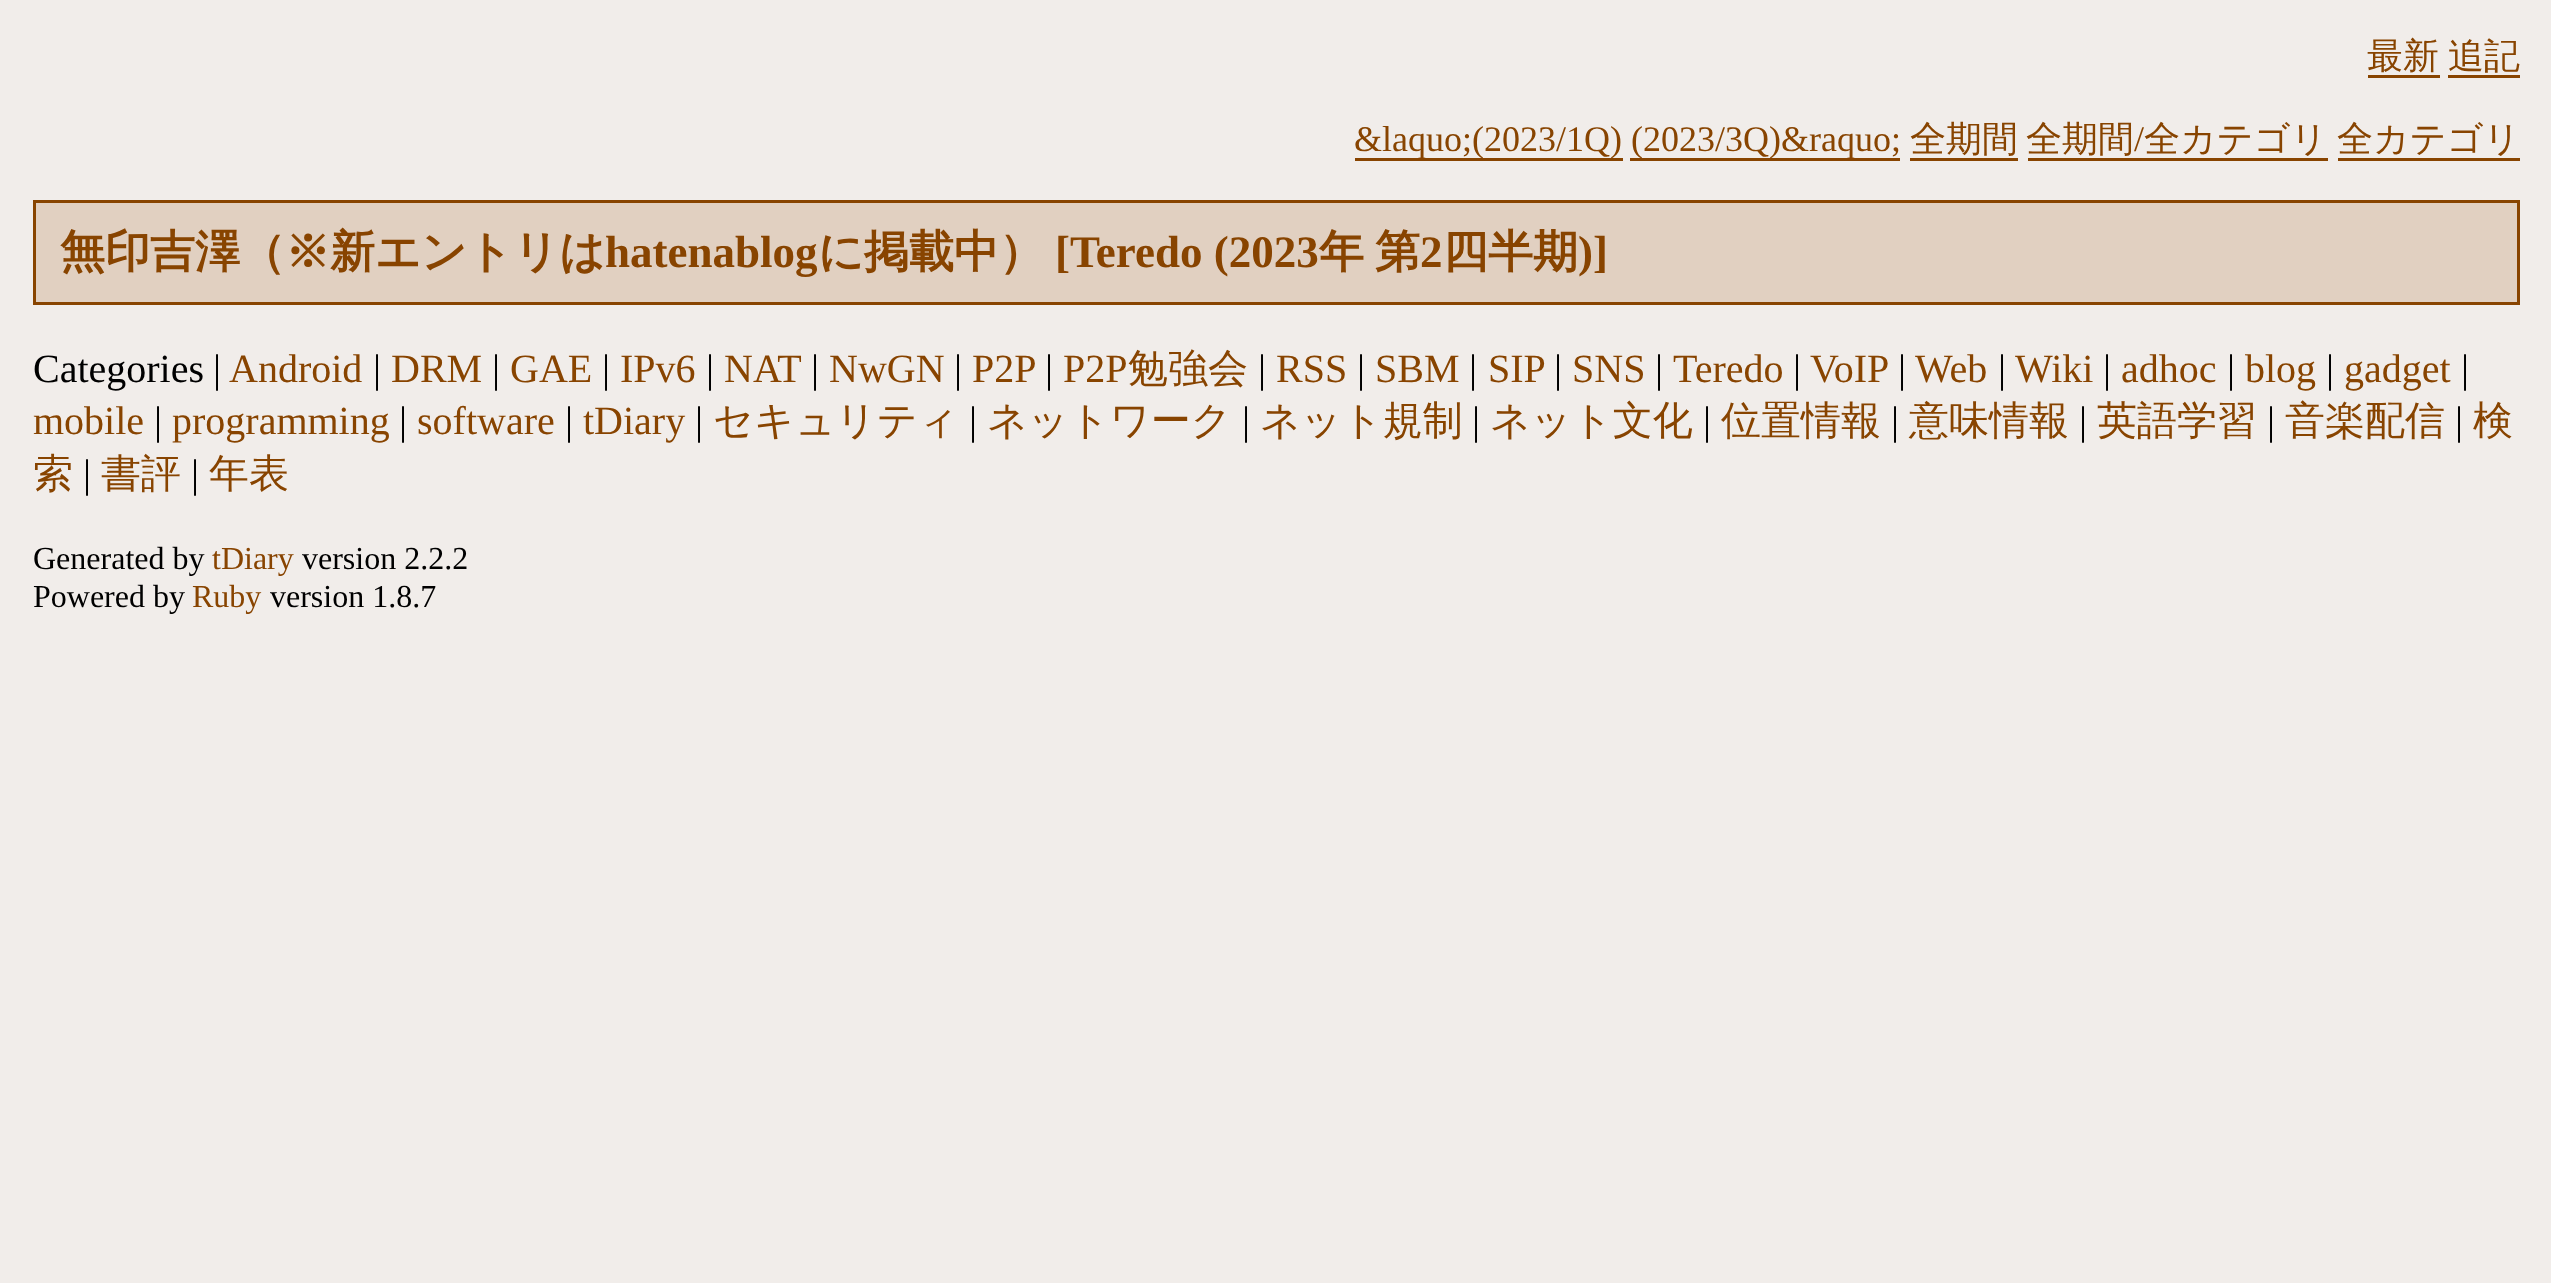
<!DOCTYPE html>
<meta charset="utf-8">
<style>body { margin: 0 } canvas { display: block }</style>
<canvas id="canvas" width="2551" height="1283"></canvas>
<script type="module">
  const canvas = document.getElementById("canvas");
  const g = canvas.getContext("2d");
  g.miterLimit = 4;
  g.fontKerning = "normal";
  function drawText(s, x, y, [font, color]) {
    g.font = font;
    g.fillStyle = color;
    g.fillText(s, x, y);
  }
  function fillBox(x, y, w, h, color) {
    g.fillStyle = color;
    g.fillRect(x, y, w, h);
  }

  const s1 = ["500 36px WenQuanYi Zen Hei", "#884400"];
  const s2 = ["36px Liberation Serif", "#884400"];
  const s3 = ["bold 45px WenQuanYi Zen Hei", "#884400"];
  const s4 = ["bold 45px Liberation Serif", "#884400"];
  const s5 = ["40px Liberation Serif", "#000000"];
  const s6 = ["40px Liberation Serif", "#884400"];
  const s7 = ["500 40px WenQuanYi Zen Hei", "#884400"];
  const s8 = ["32px Liberation Serif", "#000000"];
  const s9 = ["32px Liberation Serif", "#884400"];

  fillBox(0, 0, 2551, 1283, "#F1EDEA");
  drawText("最新", 2367, 68, s1);
  fillBox(2368, 75, 72, 3, "#884400");
  drawText("追記", 2448, 68, s1);
  fillBox(2448, 75, 72, 3, "#884400");
  fillBox(1355, 158, 268, 3, "#884400");
  drawText("&laquo;(2023/1Q)", 1354, 151, s2);
  fillBox(1630, 158, 270, 3, "#884400");
  drawText("(2023/3Q)&raquo;", 1631, 151, s2);
  drawText("全期間", 1910, 151, s1);
  fillBox(1910, 158, 108, 3, "#884400");
  drawText("全期間", 2026, 151, s1);
  drawText("/", 2134, 151, s2);
  fillBox(2028, 158, 300, 3, "#884400");
  drawText("全カテゴリ", 2144, 151, s1);
  drawText("全カテゴリ", 2337, 151, s1);
  fillBox(2338, 158, 182, 3, "#884400");
  g.fillStyle = "#E1D0C1";
  g.beginPath();
  g.rect(34.5, 201.5, 2484, 102);
  g.fill();
  g.strokeStyle = "#884400";
  g.lineWidth = 3;
  g.stroke();
  drawText("無印吉澤（※新エントリは", 60, 267, s3);
  drawText("hatenablog", 605, 267, s4);
  drawText("に掲載中）", 818, 267, s3);
  drawText("[Teredo (2023", 1055, 267, s4);
  drawText("年", 1319, 267, s3);
  drawText("第", 1375, 267, s3);
  drawText("2", 1420, 267, s4);
  drawText("四半期", 1443, 267, s3);
  drawText(")]", 1578, 267, s4);
  g.wordSpacing = "-1px";
  drawText("Categories |", 33, 382, s5);
  g.wordSpacing = "0px";
  drawText("Android", 229, 382, s6);
  drawText("|", 373, 382, s5);
  drawText("DRM", 391, 382, s6);
  drawText("|", 492, 382, s5);
  drawText("GAE", 510, 382, s6);
  drawText("|", 602, 382, s5);
  drawText("IPv6", 620, 382, s6);
  drawText("|", 706, 382, s5);
  drawText("NAT", 724, 382, s6);
  drawText("|", 811, 382, s5);
  drawText("NwGN", 829, 382, s6);
  drawText("|", 954, 382, s5);
  drawText("P2P", 972, 382, s6);
  drawText("|", 1045, 382, s5);
  drawText("P2P", 1063, 382, s6);
  drawText("勉強会", 1128, 382, s7);
  drawText("|", 1258, 382, s5);
  drawText("RSS", 1276, 382, s6);
  drawText("|", 1357, 382, s5);
  drawText("SBM", 1375, 382, s6);
  drawText("|", 1469, 382, s5);
  drawText("SIP", 1488, 382, s6);
  drawText("|", 1554, 382, s5);
  drawText("SNS", 1572, 382, s6);
  drawText("|", 1655, 382, s5);
  drawText("Teredo", 1673, 382, s6);
  drawText("|", 1793, 382, s5);
  drawText("VoIP", 1810, 382, s6);
  drawText("|", 1898, 382, s5);
  drawText("Web", 1915, 382, s6);
  drawText("|", 1998, 382, s5);
  drawText("Wiki", 2015, 382, s6);
  drawText("|", 2103, 382, s5);
  drawText("adhoc", 2121, 382, s6);
  drawText("|", 2227, 382, s5);
  drawText("blog", 2245, 382, s6);
  drawText("|", 2326, 382, s5);
  drawText("gadget", 2344, 382, s6);
  drawText("|", 2461, 382, s5);
  drawText("mobile", 33, 434, s6);
  drawText("|", 154, 434, s5);
  drawText("programming", 172, 434, s6);
  drawText("|", 399, 434, s5);
  drawText("software", 417, 434, s6);
  drawText("|", 565, 434, s5);
  drawText("tDiary", 583, 434, s6);
  drawText("|", 695, 434, s5);
  drawText("セキュリティ", 713, 434, s7);
  drawText("|", 969, 434, s5);
  drawText("ネットワーク", 987, 434, s7);
  drawText("|", 1242, 434, s5);
  drawText("ネット規制", 1260, 434, s7);
  drawText("|", 1472, 434, s5);
  drawText("ネット文化", 1490, 434, s7);
  drawText("|", 1703, 434, s5);
  drawText("位置情報", 1721, 434, s7);
  drawText("|", 1891, 434, s5);
  drawText("意味情報", 1909, 434, s7);
  drawText("|", 2079, 434, s5);
  drawText("英語学習", 2097, 434, s7);
  drawText("|", 2267, 434, s5);
  drawText("音楽配信", 2285, 434, s7);
  drawText("|", 2455, 434, s5);
  drawText("検", 2473, 434, s7);
  drawText("索", 33, 487, s7);
  drawText("|", 83, 487, s5);
  drawText("書評", 101, 487, s7);
  drawText("|", 191, 487, s5);
  drawText("年表", 209, 487, s7);
  drawText("Generated by", 33, 569, s8);
  drawText("tDiary", 212, 569, s9);
  drawText("version 2.2.2", 302, 569, s8);
  drawText("Powered by", 33, 607, s8);
  drawText("Ruby", 192, 607, s9);
  drawText("version 1.8.7", 270, 607, s8);
</script>
